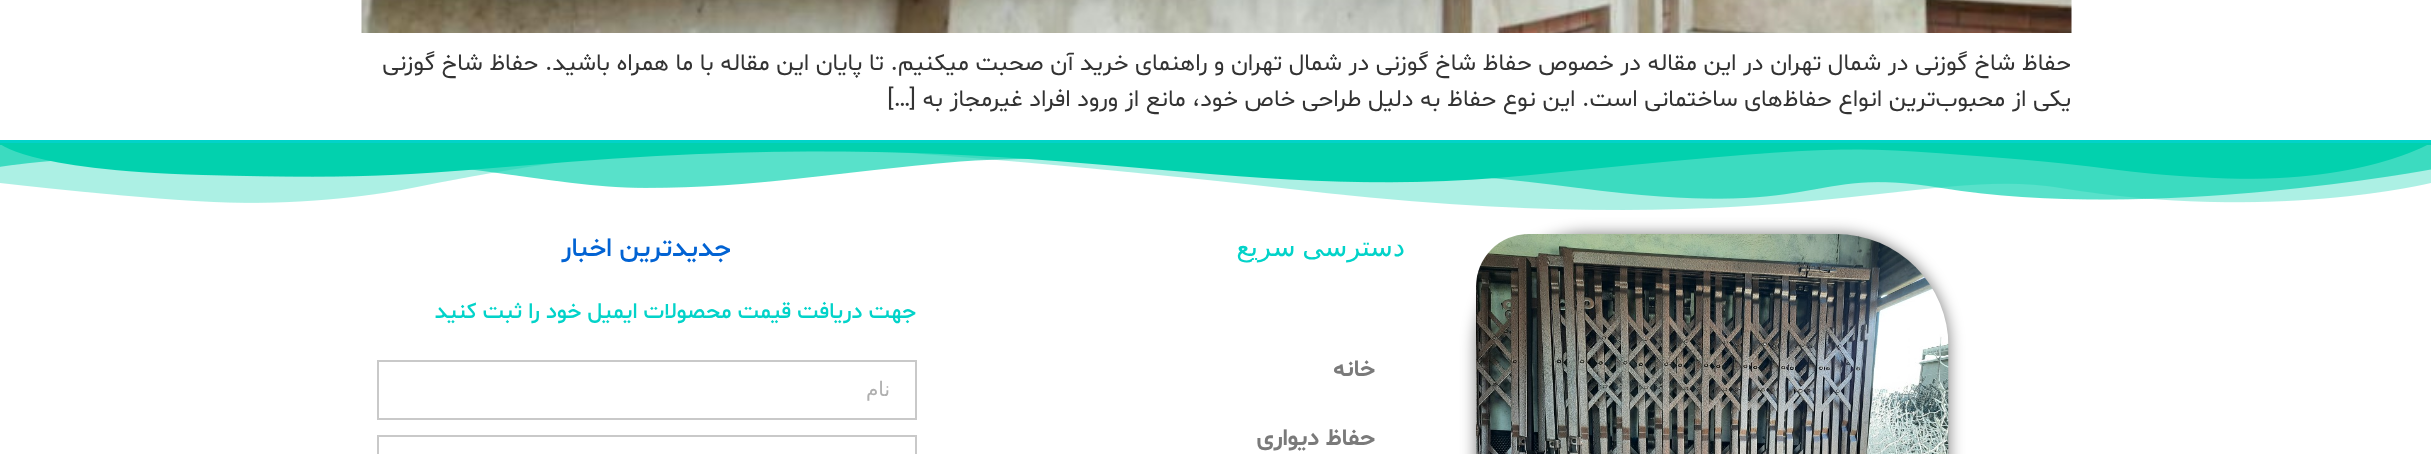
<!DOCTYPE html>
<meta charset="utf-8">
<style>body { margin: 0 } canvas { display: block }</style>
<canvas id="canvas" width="2431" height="454"></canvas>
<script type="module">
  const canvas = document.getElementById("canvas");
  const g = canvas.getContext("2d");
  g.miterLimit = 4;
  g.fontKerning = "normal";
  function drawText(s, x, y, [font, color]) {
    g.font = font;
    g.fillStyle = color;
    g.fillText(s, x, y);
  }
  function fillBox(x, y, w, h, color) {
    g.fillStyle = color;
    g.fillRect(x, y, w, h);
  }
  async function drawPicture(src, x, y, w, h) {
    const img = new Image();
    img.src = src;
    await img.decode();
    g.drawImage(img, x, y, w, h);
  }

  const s1 = ["24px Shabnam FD", "#333333"];
  const s2 = ["27px DejaVu Sans", "#02D3C9"];
  const s3 = ["bold 24px Shabnam FD", "#7A7A7A"];
  const s4 = ["500 27px Shabnam FD", "#0263D3"];
  const s5 = ["500 22.5px Shabnam FD", "#02D3C9"];
  const s6 = ["20px DejaVu Sans", "#AFAFAF"];

  fillBox(0, 0, 2431, 454, "#FFFFFF");
  await drawPicture("pic1.png", 361, 0, 1711, 33);
  g.direction = "rtl";
  drawText("حفاظ شاخ گوزنی در شمال تهران در این مقاله در خصوص حفاظ شاخ گوزنی در شمال تهران و راهنمای خرید آن صحبت میکنیم. تا پایان این مقاله با ما همراه باشید. حفاظ شاخ گوزنی", 2071, 70, s1);
  drawText("یکی از محبوب‌ترین انواع حفاظ‌های ساختمانی است. این نوع حفاظ به دلیل طراحی خاص خود، مانع از ورود افراد غیرمجاز به […]", 2071, 106, s1);
  fillBox(0, 140, 2431, 5, "#02D3C9");
  await drawPicture("pic2.png", 0, 143, 2431, 67);
  g.fillStyle = "rgba(0, 0, 0, 0.5)";
  g.filter = "blur(7.5px)";
  g.beginPath();
  g.roundRect(1476, 234, 473, 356, 113);
  g.fill();
  g.filter = "none";
  await drawPicture("pic3.png", 1476, 234, 473, 220);
  g.wordSpacing = "-2px";
  drawText("دسترسی سریع", 1405, 256, s2);
  g.wordSpacing = "0px";
  drawText("خانه", 1375, 376, s3);
  drawText("حفاظ دیواری", 1375, 445, s3);
  drawText("جدیدترین اخبار", 731, 256, s4);
  drawText("جهت دریافت قیمت محصولات ایمیل خود را ثبت کنید", 916, 318, s5);
  g.strokeStyle = "#C9C9C9";
  g.lineWidth = 2;
  g.strokeRect(378, 361, 538, 58);
  drawText("نام", 890, 396, s6);
  g.strokeRect(378, 436, 538, 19);
</script>
